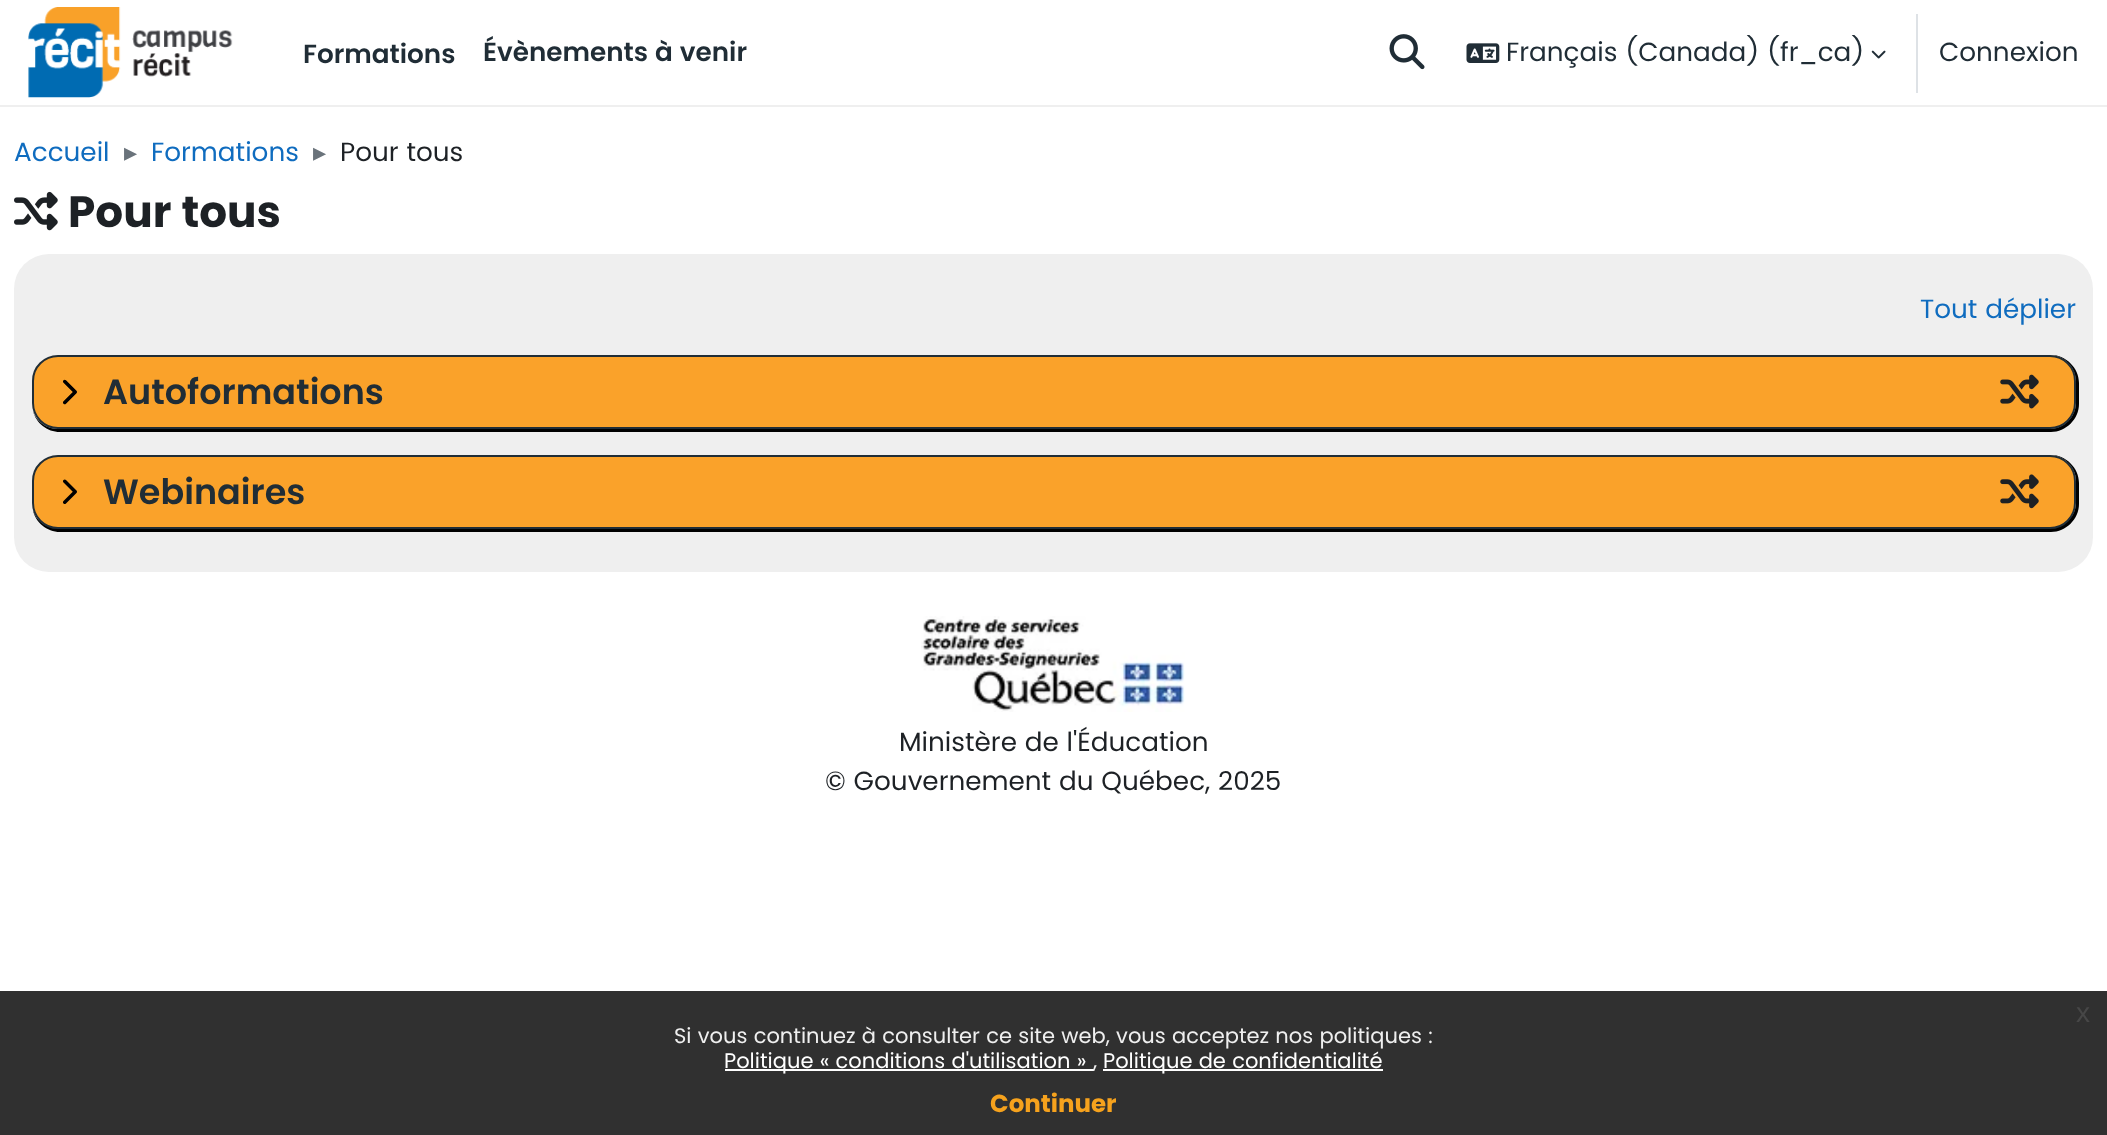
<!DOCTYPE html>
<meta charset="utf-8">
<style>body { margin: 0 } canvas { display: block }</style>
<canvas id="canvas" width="2107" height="1135"></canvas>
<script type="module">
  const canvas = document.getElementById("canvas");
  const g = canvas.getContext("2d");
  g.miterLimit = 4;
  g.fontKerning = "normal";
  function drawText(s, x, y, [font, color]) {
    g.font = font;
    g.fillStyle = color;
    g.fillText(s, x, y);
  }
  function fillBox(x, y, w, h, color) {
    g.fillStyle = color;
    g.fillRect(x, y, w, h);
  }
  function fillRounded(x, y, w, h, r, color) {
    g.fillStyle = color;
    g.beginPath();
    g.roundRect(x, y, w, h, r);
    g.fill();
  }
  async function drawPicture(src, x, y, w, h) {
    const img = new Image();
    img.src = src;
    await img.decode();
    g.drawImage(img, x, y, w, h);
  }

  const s1 = ["600 26.25px Poppins", "#202D36"];
  const s2 = ["26.25px Poppins", "#202D36"];
  const s3 = ["26.25px Poppins", "#0F6CBF"];
  const s4 = ["26.25px DejaVu Sans", "#6A737B"];
  const s5 = ["26.25px Poppins", "#1D2125"];
  const s6 = ["bold 43.75px Poppins", "#1D2125"];
  const s7 = ["600 35px Poppins", "#202D36"];
  const s8 = ["28px Liberation Sans", "#474747"];
  const s9 = ["21px Poppins", "#EFEFEF"];
  const s10 = ["21px Poppins", "#FFFFFF"];
  const s11 = ["bold 24.5px Poppins", "#F6A21D"];

  fillBox(0, 0, 2107, 1135, "#FFFFFF");
  fillBox(0, 105, 2107, 2, "#EFEFEF");
  await drawPicture("pic1.png", 28, 7, 205, 91);
  drawText("Formations", 303, 63, s1);
  drawText("Évènements à venir", 483, 61, s1);
  await drawPicture("pic2.png", 1389, 34, 36, 36);
  await drawPicture("pic3.png", 1466, 43, 34, 20);
  drawText("Français (Canada) (fr_ca)", 1506, 61, s2);
  await drawPicture("pic4.png", 1871, 50, 15, 9);
  fillBox(1916, 14, 2, 79, "#DEE2E6");
  drawText("Connexion", 1939, 61, s2);
  drawText("Accueil", 14, 161, s3);
  drawText("▸", 124, 161, s4);
  drawText("Formations", 151, 161, s3);
  drawText("▸", 313, 161, s4);
  drawText("Pour tous", 340, 161, s5);
  await drawPicture("pic5.png", 14, 191, 44, 40);
  drawText("Pour tous", 68, 227, s6);
  fillRounded(14, 254, 2079, 318, 35, "#EFEFEF");
  drawText("Tout déplier", 1920, 318, s3);
  g.fillStyle = "#000000";
  g.beginPath();
  g.moveTo(60, 355);
  g.lineTo(56, 355);
  g.lineTo(2049, 355);
  g.bezierCurveTo(2064, 355, 2076, 367, 2076, 382);
  g.lineTo(2076, 402);
  g.bezierCurveTo(2076, 417, 2064, 429, 2049, 429);
  g.lineTo(58, 429);
  g.bezierCurveTo(46, 429, 36, 421, 33, 411);
  g.bezierCurveTo(36, 423, 47, 432, 60, 432);
  g.lineTo(2051, 432);
  g.bezierCurveTo(2066, 432, 2079, 419, 2079, 404);
  g.lineTo(2079, 383);
  g.bezierCurveTo(2079, 368, 2066, 355, 2051, 355);
  g.closePath();
  g.fill();
  g.fillStyle = "#FAA22A";
  g.beginPath();
  g.roundRect(33, 356, 2042, 72, 25);
  g.fill();
  g.strokeStyle = "#202D36";
  g.lineWidth = 2;
  g.stroke();
  await drawPicture("pic6.png", 63, 379, 14, 26);
  drawText("Autoformations", 103, 404, s7);
  await drawPicture("pic7.png", 2000, 374, 39, 35);
  g.fillStyle = "#000000";
  g.beginPath();
  g.moveTo(33, 510);
  g.bezierCurveTo(35, 522, 47, 532, 60, 532);
  g.lineTo(2051, 532);
  g.bezierCurveTo(2066, 532, 2079, 519, 2079, 504);
  g.lineTo(2079, 483);
  g.bezierCurveTo(2079, 468, 2066, 455, 2051, 455);
  g.lineTo(2049, 455);
  g.bezierCurveTo(2064, 455, 2076, 467, 2076, 481);
  g.lineTo(2076, 502);
  g.bezierCurveTo(2076, 517, 2064, 528, 2049, 528);
  g.lineTo(58, 528);
  g.bezierCurveTo(46, 528, 36, 521, 33, 510);
  g.closePath();
  g.fill();
  g.fillStyle = "#FAA22A";
  g.beginPath();
  g.roundRect(33, 456, 2042, 72, 25);
  g.fill();
  g.stroke();
  await drawPicture("pic8.png", 63, 479, 14, 25);
  drawText("Webinaires", 103, 504, s7);
  await drawPicture("pic9.png", 2000, 474, 39, 35);
  await drawPicture("pic10.png", 921, 616, 264, 96);
  drawText("Ministère de l'Éducation", 899, 751, s5);
  drawText("© Gouvernement du Québec, 2025", 825, 790, s5);
  fillBox(0, 991, 2107, 144, "#303030");
  drawText("x", 2076, 1022, s8);
  drawText("Si vous continuez à consulter ce site web, vous acceptez nos politiques :", 674, 1043, s9);
  fillBox(725, 1069, 369, 2, "#FFFFFF");
  drawText("Politique « conditions d'utilisation »", 724, 1068, s10);
  drawText(",", 1093, 1068, s9);
  fillBox(1103, 1069, 280, 2, "#FFFFFF");
  drawText("Politique de confidentialité", 1103, 1068, s10);
  drawText("Continuer", 990, 1112, s11);
</script>
